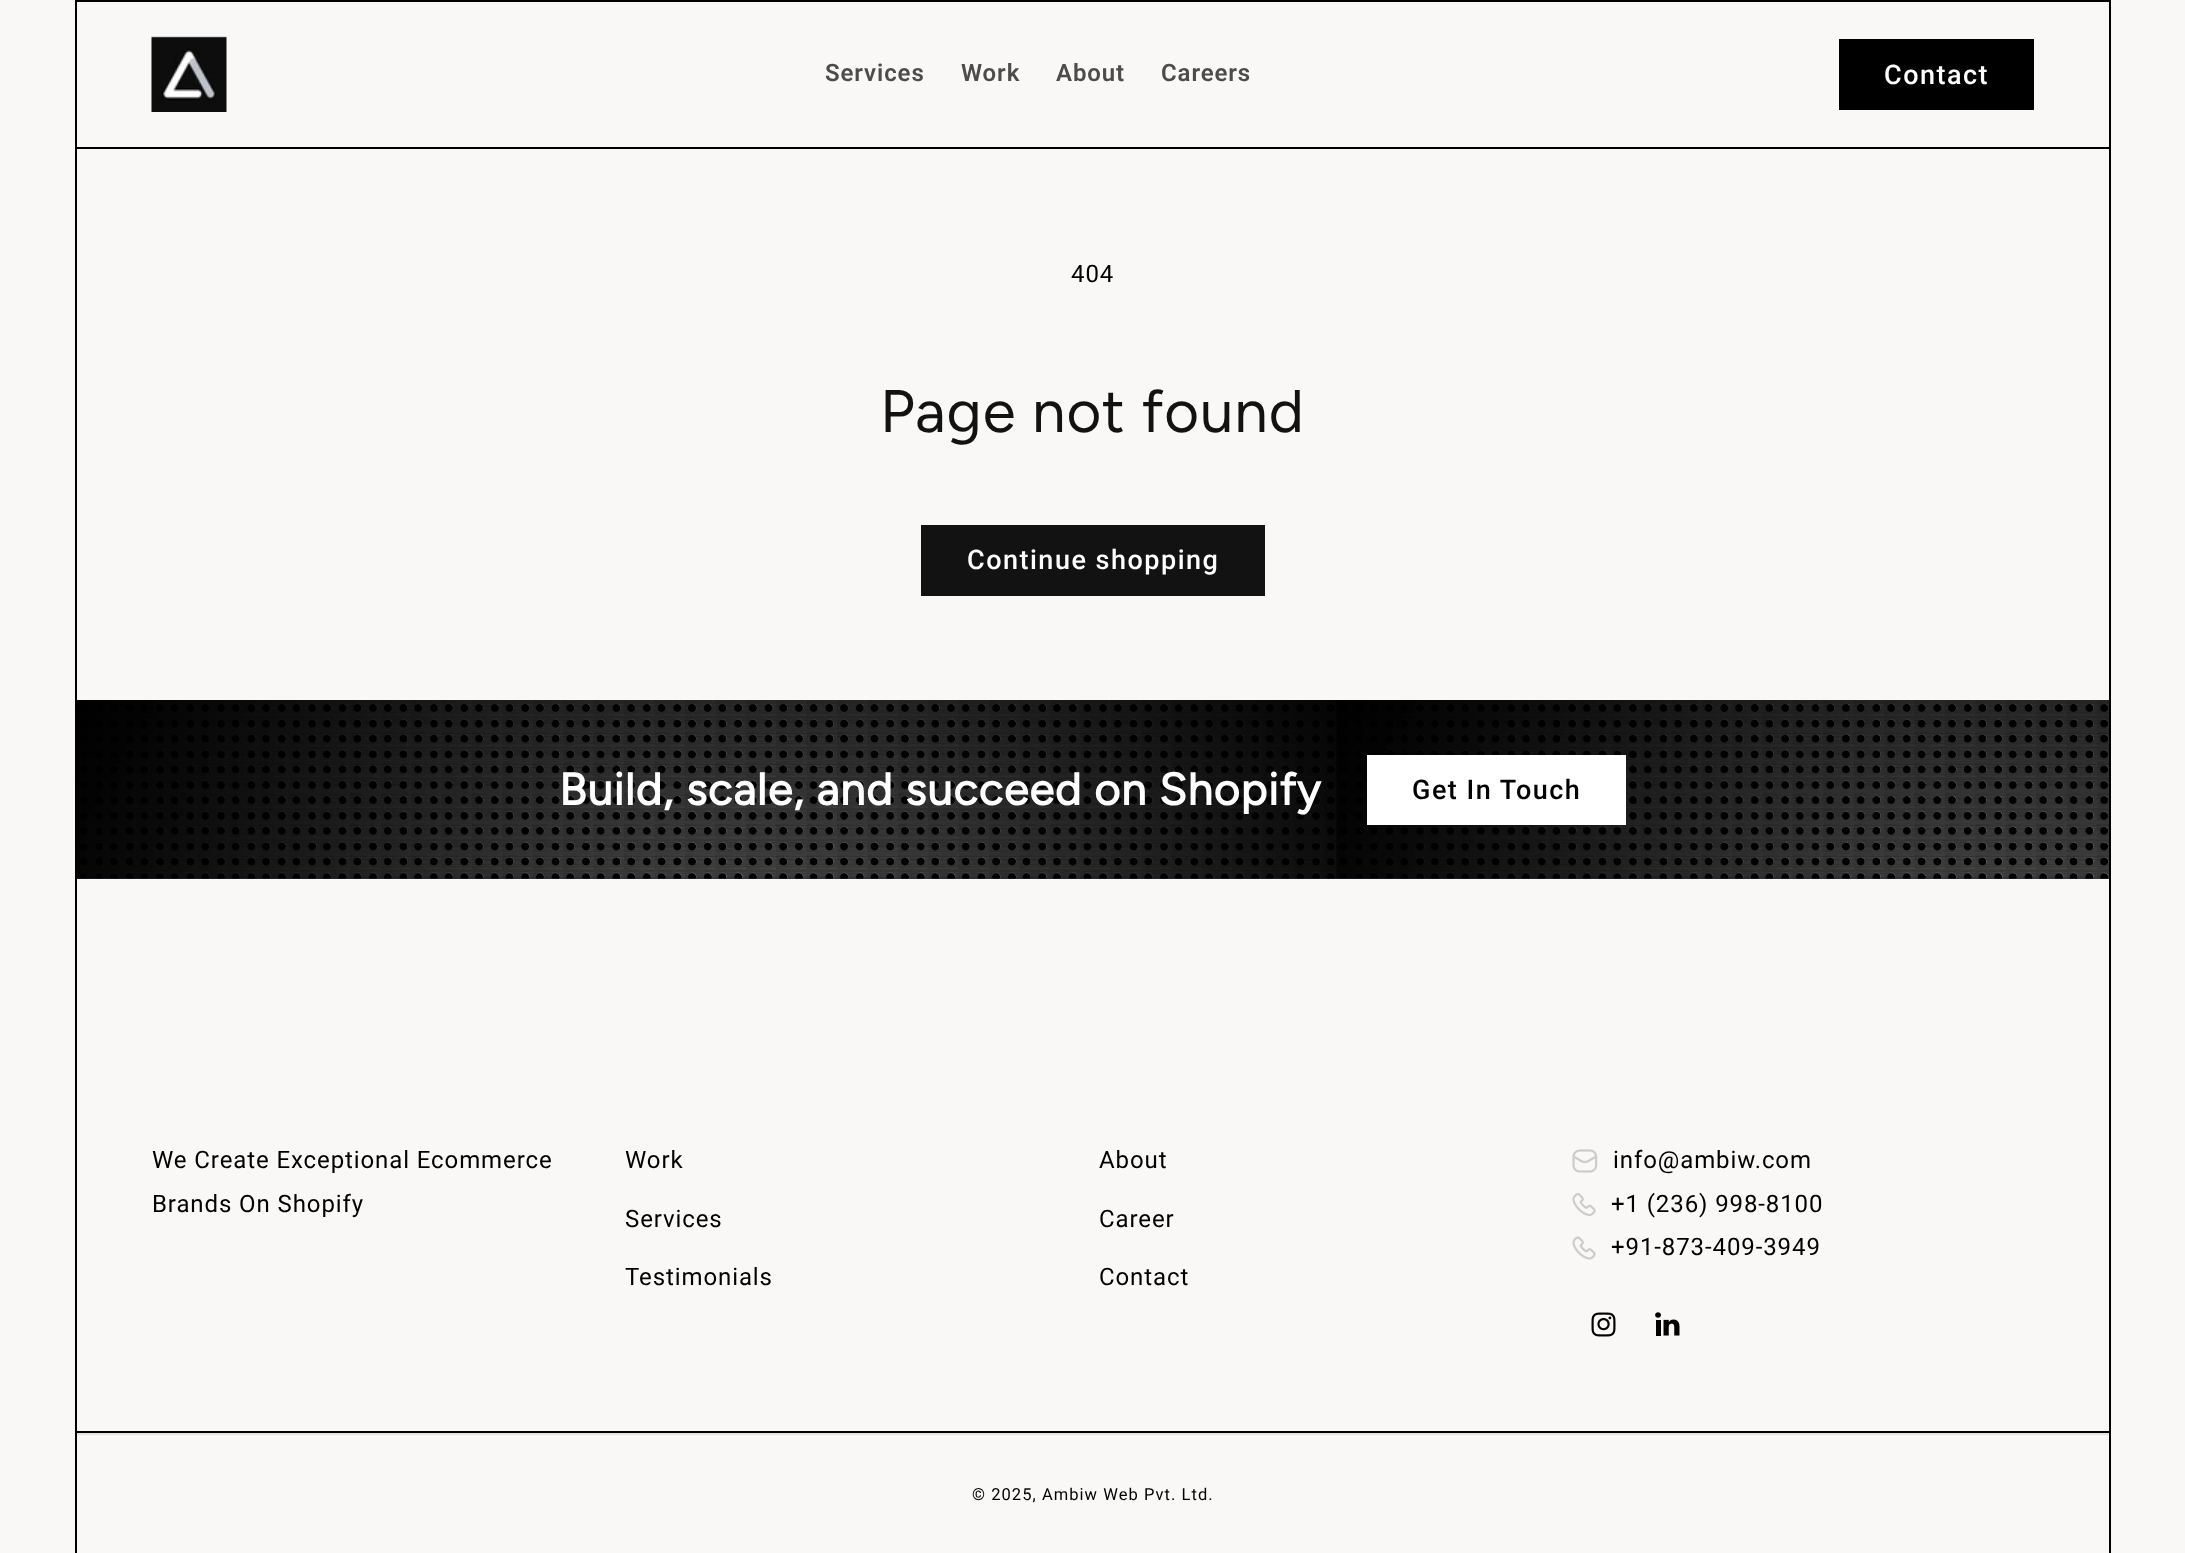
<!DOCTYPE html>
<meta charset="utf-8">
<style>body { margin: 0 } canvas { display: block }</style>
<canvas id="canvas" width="2185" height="1553"></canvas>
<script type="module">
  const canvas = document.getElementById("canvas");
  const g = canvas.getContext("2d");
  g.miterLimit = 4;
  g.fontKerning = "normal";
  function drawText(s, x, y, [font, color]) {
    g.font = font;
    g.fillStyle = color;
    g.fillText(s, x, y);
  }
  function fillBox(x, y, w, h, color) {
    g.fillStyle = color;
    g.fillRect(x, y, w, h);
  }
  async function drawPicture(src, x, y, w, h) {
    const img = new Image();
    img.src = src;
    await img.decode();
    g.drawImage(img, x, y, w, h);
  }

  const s1 = ["600 24px Roboto", "#4C4C4B"];
  const s2 = ["500 27px Roboto", "#FFFFFF"];
  const s3 = ["24px Roboto", "#000000"];
  const s4 = ["60px Figtree", "#121212"];
  const s5 = ["bold 45px Figtree", "#FFFFFF"];
  const s6 = ["500 27px Roboto", "#000000"];
  const s7 = ["16.5px Roboto", "#000000"];

  fillBox(0, 0, 2185, 1553, "#F9F8F6");
  g.strokeStyle = "#000000";
  g.lineWidth = 2;
  g.strokeRect(76, 1, 2034, 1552);
  fillBox(77, 147, 2032, 2, "#000000");
  await drawPicture("pic1.png", 151, 36, 76, 76);
  g.letterSpacing = "0.9px";
  drawText("Services", 825, 81, s1);
  drawText("Work", 961, 81, s1);
  drawText("About", 1056, 81, s1);
  drawText("Careers", 1161, 81, s1);
  fillBox(1839, 39, 195, 71, "#000000");
  g.letterSpacing = "1.5px";
  drawText("Contact", 1884, 84, s2);
  g.letterSpacing = "0.9px";
  drawText("404", 1071, 282, s3);
  drawText("Page not found", 880, 432, s4);
  fillBox(921, 525, 344, 71, "#121212");
  g.letterSpacing = "1.5px";
  drawText("Continue shopping", 967, 569, s2);
  fillBox(77, 878, 2032, 1, "#242833");
  await drawPicture("pic2.png", 76, 700, 2033, 179);
  g.letterSpacing = "0.9px";
  drawText("Build, scale, and succeed on Shopify", 559, 805, s5);
  fillBox(1367, 755, 259, 70, "#FFFFFF");
  g.letterSpacing = "1.5px";
  drawText("Get In Touch", 1412, 799, s6);
  fillBox(77, 1552, 2032, 1, "#F9F8F6");
  fillBox(77, 1431, 2032, 2, "#000000");
  g.letterSpacing = "0.9px";
  drawText("We Create Exceptional Ecommerce", 152, 1168, s3);
  drawText("Brands On Shopify", 152, 1212, s3);
  drawText("Work", 625, 1168, s3);
  drawText("Services", 625, 1227, s3);
  drawText("Testimonials", 625, 1285, s3);
  drawText("About", 1099, 1168, s3);
  drawText("Career", 1099, 1227, s3);
  drawText("Contact", 1099, 1285, s3);
  await drawPicture("pic3.png", 1572, 1149, 26, 24);
  drawText("info@ambiw.com", 1613, 1168, s3);
  await drawPicture("pic4.png", 1572, 1193, 24, 23);
  drawText("+1 (236) 998-8100", 1611, 1212, s3);
  await drawPicture("pic5.png", 1572, 1236, 24, 24);
  drawText("+91-873-409-3949", 1611, 1255, s3);
  await drawPicture("pic6.png", 1591, 1312, 25, 25);
  await drawPicture("pic7.png", 1655, 1312, 25, 24);
  fillBox(77, 1433, 2032, 2, "#E5E4E2");
  g.letterSpacing = "1.05px";
  drawText("© 2025, Ambiw Web Pvt. Ltd.", 972, 1500, s7);
</script>
